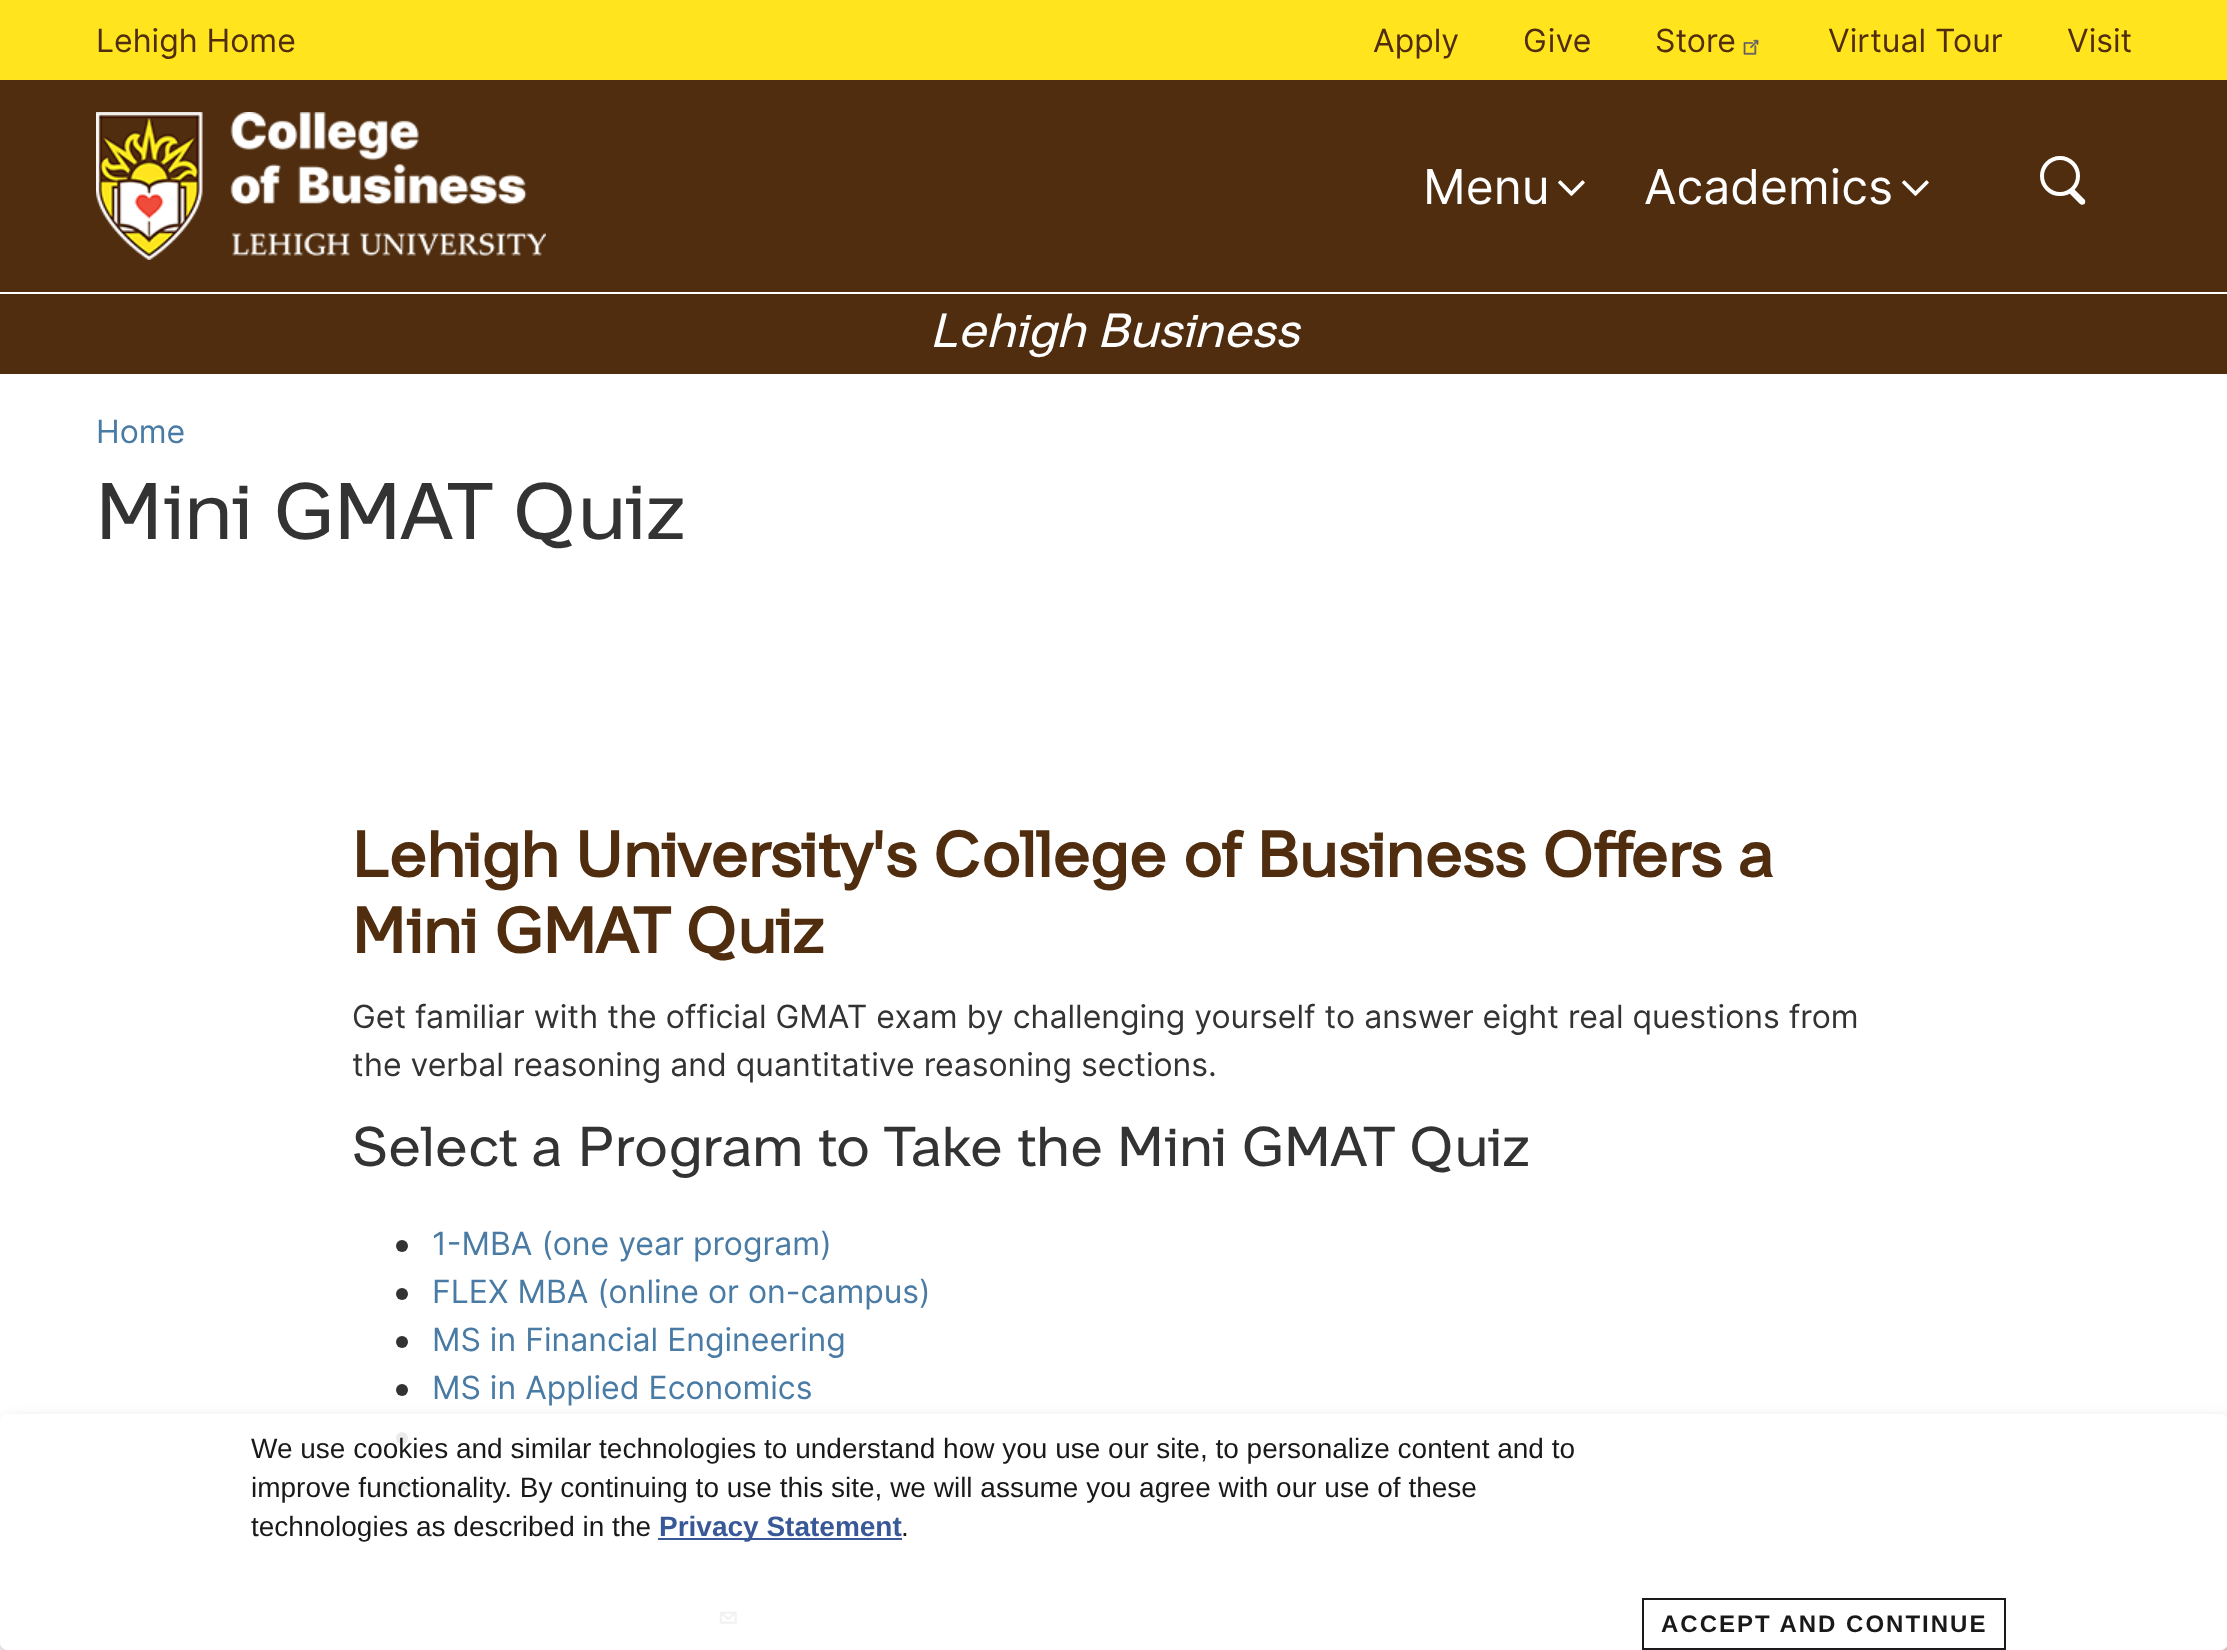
<!DOCTYPE html>
<meta charset="utf-8">
<style>body { margin: 0 } canvas { display: block }</style>
<canvas id="canvas" width="2227" height="1650"></canvas>
<script type="module">
  const canvas = document.getElementById("canvas");
  const g = canvas.getContext("2d");
  g.miterLimit = 4;
  g.fontKerning = "normal";
  function drawText(s, x, y, [font, color]) {
    g.font = font;
    g.fillStyle = color;
    g.fillText(s, x, y);
  }
  function fillBox(x, y, w, h, color) {
    g.fillStyle = color;
    g.fillRect(x, y, w, h);
  }
  function fillRounded(x, y, w, h, r, color) {
    g.fillStyle = color;
    g.beginPath();
    g.roundRect(x, y, w, h, r);
    g.fill();
  }
  async function drawPicture(src, x, y, w, h) {
    const img = new Image();
    img.src = src;
    await img.decode();
    g.drawImage(img, x, y, w, h);
  }

  const s1 = ["32px Inter", "#502D0E"];
  const s2 = ["48px Inter", "#FFFFFF"];
  const s3 = ["italic 48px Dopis", "#FFFFFF"];
  const s4 = ["32px Inter", "#497BA4"];
  const s5 = ["80px Dopis", "#333333"];
  const s6 = ["bold 64px Dopis", "#502D0E"];
  const s7 = ["32px Inter", "#333333"];
  const s8 = ["56px Dopis", "#333333"];
  const s9 = ["28px Liberation Sans", "#191919"];
  const s10 = ["bold 28px Liberation Sans", "#395897"];
  const s11 = ["bold 24px Liberation Sans", "#191919"];

  fillBox(0, 0, 2227, 1650, "#FFFFFF");
  fillBox(0, 0, 2227, 80, "#FFE41E");
  drawText("Lehigh Home", 96, 52, s1);
  drawText("Apply", 1373, 52, s1);
  drawText("Give", 1523, 52, s1);
  drawText("Store", 1655, 52, s1);
  await drawPicture("pic1.png", 1743, 39, 16, 16);
  drawText("Virtual Tour", 1828, 52, s1);
  drawText("Visit", 2067, 52, s1);
  fillBox(0, 80, 2227, 212, "#502D0E");
  await drawPicture("pic2.png", 96, 112, 450, 148);
  drawText("Menu", 1423, 204, s2);
  await drawPicture("pic3.png", 1558, 180, 27, 16);
  drawText("Academics", 1644, 204, s2);
  await drawPicture("pic3.png", 1902, 180, 27, 16);
  g.beginPath();
  g.arc(2060, 176, 18, 0, Math.PI * 2);
  g.strokeStyle = "#FFFFFF";
  g.lineWidth = 4;
  g.stroke();
  g.beginPath();
  g.moveTo(2070, 189.5);
  g.bezierCurveTo(2071.5, 188.5, 2073, 188.5, 2074.5, 189.5);
  g.lineTo(2084.5, 199.5);
  g.bezierCurveTo(2085.5, 200.5, 2085.5, 202.5, 2084.5, 204);
  g.bezierCurveTo(2083, 205, 2081, 205, 2080, 204);
  g.lineTo(2070, 194);
  g.bezierCurveTo(2069, 192.5, 2069, 191, 2070, 189.5);
  g.closePath();
  g.fill();
  fillBox(0, 294, 2227, 80, "#502D0E");
  drawText("Lehigh Business", 930, 347, s3);
  drawText("Home", 96, 443, s4);
  drawText("Mini GMAT Quiz", 96, 539, s5);
  drawText("Lehigh University's College of Business Offers a", 352, 877, s6);
  drawText("Mini GMAT Quiz", 352, 953, s6);
  drawText("Get familiar with the official GMAT exam by challenging yourself to answer eight real questions from", 352, 1028, s7);
  drawText("the verbal reasoning and quantitative reasoning sections.", 352, 1076, s7);
  drawText("Select a Program to Take the Mini GMAT Quiz", 352, 1166, s8);
  g.beginPath();
  g.arc(402, 1246, 6, 0, Math.PI * 2);
  g.fill();
  drawText("1-MBA (one year program)", 432, 1255, s4);
  g.fillStyle = "#333333";
  g.beginPath();
  g.arc(402, 1294, 6, 0, Math.PI * 2);
  g.fill();
  drawText("FLEX MBA (online or on-campus)", 432, 1303, s4);
  g.fillStyle = "#333333";
  g.beginPath();
  g.arc(402, 1342, 6, 0, Math.PI * 2);
  g.fill();
  drawText("MS in Financial Engineering", 432, 1351, s4);
  g.fillStyle = "#333333";
  g.beginPath();
  g.arc(402, 1390, 6, 0, Math.PI * 2);
  g.fill();
  drawText("MS in Applied Economics", 432, 1399, s4);
  g.fillStyle = "#333333";
  g.beginPath();
  g.arc(402, 1438, 6, 0, Math.PI * 2);
  g.fill();
  g.beginPath();
  g.arc(402, 1486, 6, 0, Math.PI * 2);
  g.fill();
  await drawPicture("pic4.png", 719, 1611, 18, 13);
  g.save();
  g.beginPath();
  g.moveTo(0, 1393);
  g.lineTo(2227, 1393);
  g.lineTo(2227, 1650);
  g.lineTo(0, 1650);
  g.closePath();
  g.moveTo(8, 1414);
  g.lineTo(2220, 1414);
  g.bezierCurveTo(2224.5, 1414, 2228, 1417.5, 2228, 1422);
  g.lineTo(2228, 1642);
  g.bezierCurveTo(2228, 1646.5, 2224.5, 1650, 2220, 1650);
  g.lineTo(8, 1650);
  g.bezierCurveTo(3.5, 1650, 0, 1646.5, 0, 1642);
  g.lineTo(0, 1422);
  g.bezierCurveTo(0, 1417.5, 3.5, 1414, 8, 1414);
  g.closePath();
  g.clip("evenodd");
  g.fillStyle = "rgba(0, 0, 0, 0.17)";
  g.filter = "blur(10px)";
  g.beginPath();
  g.roundRect(10, 1424, 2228, 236, 8);
  g.fill();
  g.filter = "none";
  g.restore();
  g.save();
  g.beginPath();
  g.moveTo(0, 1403);
  g.lineTo(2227, 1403);
  g.lineTo(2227, 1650);
  g.lineTo(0, 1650);
  g.closePath();
  g.moveTo(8, 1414);
  g.lineTo(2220, 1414);
  g.bezierCurveTo(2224.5, 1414, 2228, 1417.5, 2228, 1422);
  g.lineTo(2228, 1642);
  g.bezierCurveTo(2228, 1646.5, 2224.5, 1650, 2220, 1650);
  g.lineTo(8, 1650);
  g.bezierCurveTo(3.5, 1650, 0, 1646.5, 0, 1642);
  g.lineTo(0, 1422);
  g.bezierCurveTo(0, 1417.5, 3.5, 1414, 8, 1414);
  g.closePath();
  g.clip("evenodd");
  g.fillStyle = "rgba(26, 26, 26, 0.2)";
  g.filter = "blur(6px)";
  g.beginPath();
  g.roundRect(0, 1422, 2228, 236, 8);
  g.fill();
  g.filter = "none";
  g.restore();
  fillRounded(0, 1414, 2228, 236, 8, "rgba(255, 255, 255, 0.9)");
  drawText("We use cookies and similar technologies to understand how you use our site, to personalize content and to", 251, 1458, s9);
  drawText("improve functionality. By continuing to use this site, we will assume you agree with our use of these", 251, 1497, s9);
  drawText("technologies as described in the", 251, 1536, s9);
  fillBox(658, 1538, 244, 2, "#395897");
  drawText("Privacy Statement", 659, 1536, s10);
  drawText(".", 901, 1536, s9);
  g.strokeStyle = "#1A1A1A";
  g.lineWidth = 2;
  g.strokeRect(1643, 1599, 362, 50);
  g.letterSpacing = "2px";
  drawText("ACCEPT AND CONTINUE", 1661, 1632, s11);
</script>
